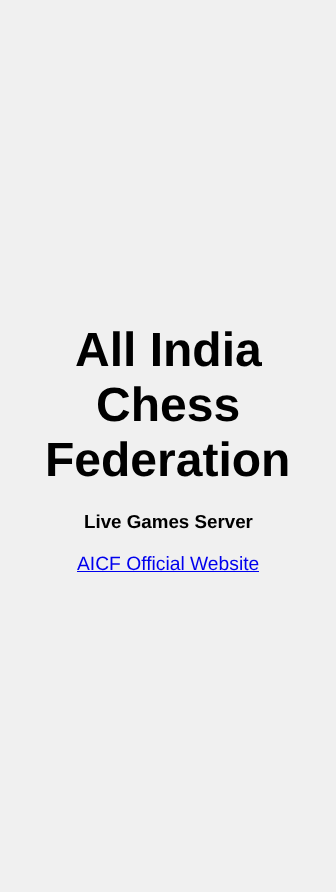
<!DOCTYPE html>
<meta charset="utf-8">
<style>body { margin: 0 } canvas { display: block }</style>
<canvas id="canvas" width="336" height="892"></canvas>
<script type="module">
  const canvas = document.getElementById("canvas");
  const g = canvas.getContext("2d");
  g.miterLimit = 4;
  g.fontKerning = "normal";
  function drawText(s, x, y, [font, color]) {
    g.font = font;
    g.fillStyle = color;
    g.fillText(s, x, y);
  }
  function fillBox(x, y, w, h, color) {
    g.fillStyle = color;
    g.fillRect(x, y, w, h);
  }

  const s1 = ["bold 48px Liberation Sans", "#000000"];
  const s2 = ["bold 18.75px Liberation Sans", "#000000"];
  const s3 = ["19.25px Liberation Sans", "#0000EE"];

  fillBox(0, 0, 336, 892, "#F0F0F0");
  drawText("All India", 75, 366, s1);
  drawText("Chess", 96, 421, s1);
  drawText("Federation", 45, 476, s1);
  drawText("Live Games Server", 84, 528, s2);
  drawText("AICF Official Website", 77, 570, s3);
  fillBox(77, 571, 182, 1, "#0000EE");
</script>
